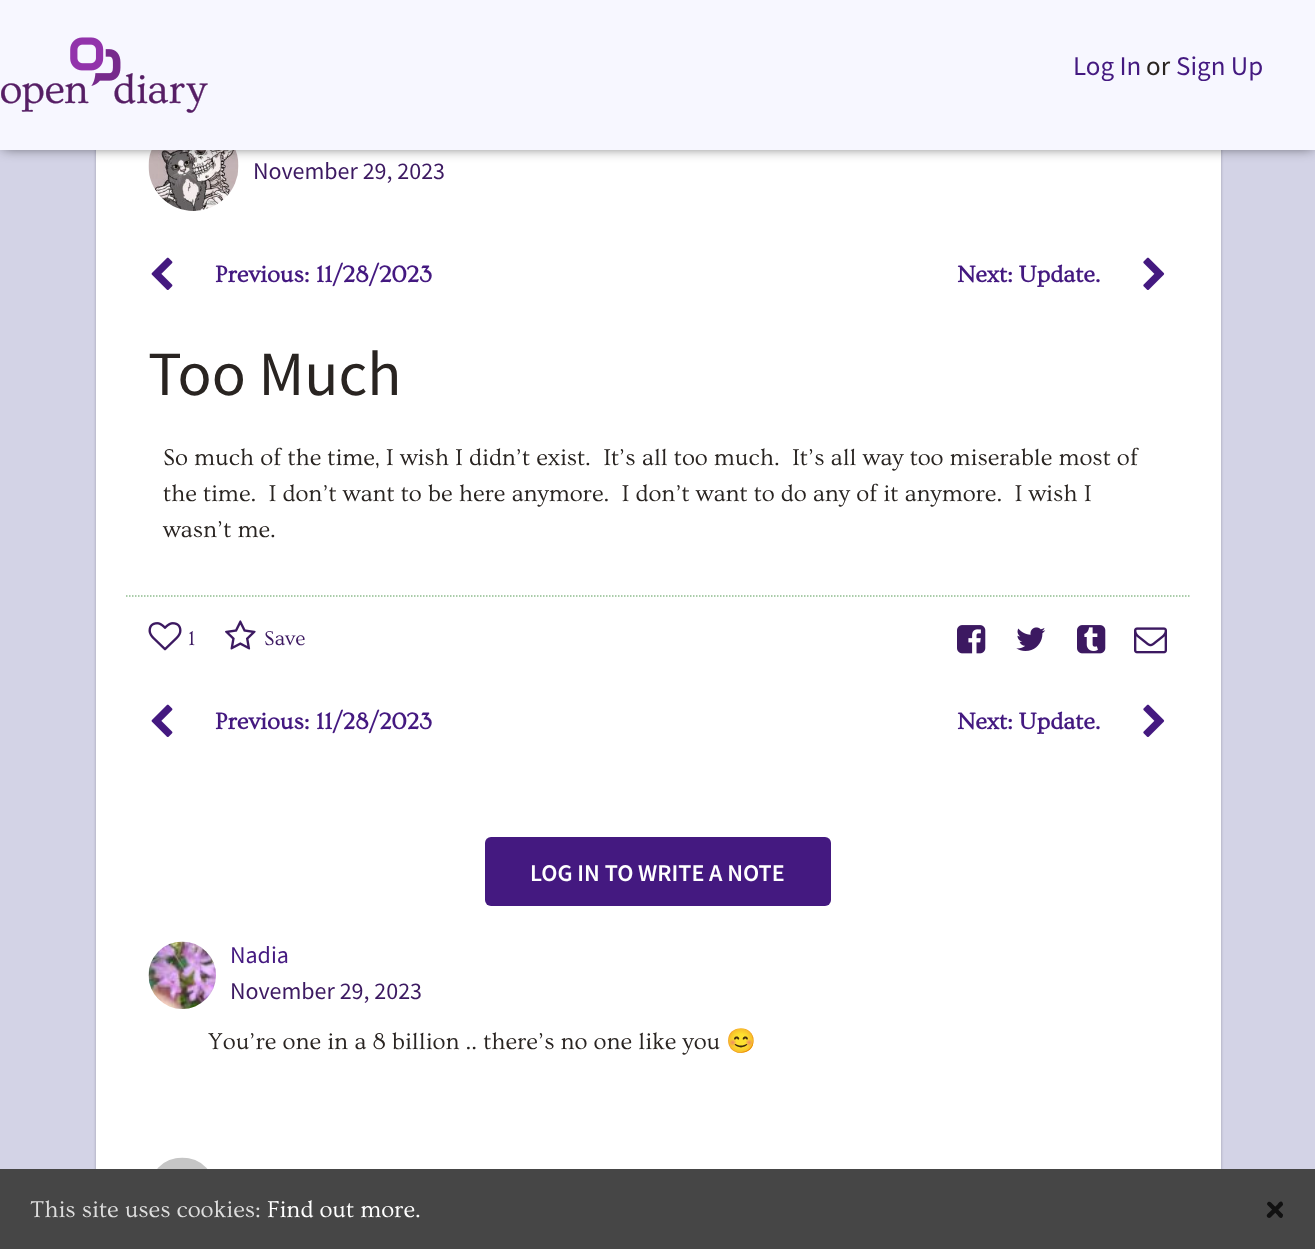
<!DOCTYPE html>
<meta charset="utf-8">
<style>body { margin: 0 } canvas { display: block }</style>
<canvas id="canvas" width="1315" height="1249"></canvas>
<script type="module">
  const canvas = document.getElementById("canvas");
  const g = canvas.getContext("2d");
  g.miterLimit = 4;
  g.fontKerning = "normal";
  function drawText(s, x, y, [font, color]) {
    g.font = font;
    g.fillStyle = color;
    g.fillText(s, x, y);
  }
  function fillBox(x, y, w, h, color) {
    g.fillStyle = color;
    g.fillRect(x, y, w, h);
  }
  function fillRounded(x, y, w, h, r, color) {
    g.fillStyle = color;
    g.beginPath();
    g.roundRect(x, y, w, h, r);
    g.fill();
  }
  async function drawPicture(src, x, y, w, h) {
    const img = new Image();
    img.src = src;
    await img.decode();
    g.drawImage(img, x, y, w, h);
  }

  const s1 = ["27px Source Sans Pro", "#441980"];
  const s2 = ["27px Source Sans Pro", "#292421"];
  const s3 = ["24px Source Sans Pro", "#3C1961"];
  const s4 = ["bold 24px Ovo", "#441980"];
  const s5 = ["63px Source Sans Pro", "#292421"];
  const s6 = ["24px Ovo", "#292421"];
  const s7 = ["21px Ovo", "#3C1961"];
  const s8 = ["600 24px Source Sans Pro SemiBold", "#FFFFFF"];
  const s9 = ["24px Source Sans Pro", "#441980"];
  const s10 = ["24px Noto Color Emoji", "#292421"];
  const s11 = ["24px Ovo", "#DDDDDD"];
  const s12 = ["24px Ovo", "#FFFFFF"];

  fillBox(0, 0, 1315, 1249, "#D3D3E6");
  g.fillStyle = "rgba(0, 0, 0, 0.25)";
  g.filter = "blur(1.5px)";
  g.beginPath();
  g.roundRect(96, 86, 1125, 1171, 3);
  g.fill();
  g.filter = "none";
  fillBox(96, 150, 1125, 1019, "#FFFFFF");
  await drawPicture("pic2.png", 148, 150, 91, 61);
  g.fillStyle = "rgba(0, 0, 0, 0.7)";
  g.filter = "blur(7px)";
  g.beginPath();
  g.rect(3, 3, 1310, 144);
  g.fill();
  g.filter = "none";
  fillBox(0, 0, 1315, 150, "#F7F7FF");
  await drawPicture("pic1.png", 1, 37, 207, 76);
  drawText("Log In", 1073, 75, s1);
  drawText("or", 1146, 75, s2);
  drawText("Sign Up", 1176, 75, s1);
  drawText("November 29, 2023", 253, 179, s3);
  await drawPicture("pic3.png", 151, 257, 22, 33);
  drawText("Previous: 11/28/2023", 215, 282, s4);
  drawText("Next: Update.", 957, 282, s4);
  await drawPicture("pic4.png", 1143, 257, 22, 33);
  drawText("Too Much", 148, 395, s5);
  drawText("So much of the time, I wish I didn’t exist.  It’s all too much.  It’s all way too miserable most of", 163, 465, s6);
  drawText("the time.  I don’t want to be here anymore.  I don’t want to do any of it anymore.  I wish I", 163, 501, s6);
  drawText("wasn’t me.", 163, 537, s6);
  g.beginPath();
  g.moveTo(126, 596);
  g.lineTo(1191, 596);
  g.strokeStyle = "#8FBC8F";
  g.lineWidth = 1.5;
  g.setLineDash([1.5, 1.5]);
  g.stroke();
  await drawPicture("pic5.png", 148, 622, 34, 29);
  drawText("1", 188, 645, s7);
  await drawPicture("pic6.png", 225, 620, 31, 30);
  drawText("Save", 264, 645, s7);
  await drawPicture("pic7.png", 957, 625, 29, 29);
  await drawPicture("pic8.png", 1016, 627, 30, 24);
  await drawPicture("pic9.png", 1077, 625, 29, 29);
  await drawPicture("pic10.png", 1134, 627, 33, 27);
  await drawPicture("pic3.png", 151, 704, 22, 33);
  drawText("Previous: 11/28/2023", 215, 729, s4);
  drawText("Next: Update.", 957, 729, s4);
  await drawPicture("pic4.png", 1143, 704, 22, 33);
  fillRounded(485, 837, 346, 69, 6, "#441980");
  drawText("LOG IN TO WRITE A NOTE", 530, 881, s8);
  await drawPicture("pic11.png", 148, 941, 68, 68);
  drawText("Nadia", 230, 963, s9);
  drawText("November 29, 2023", 230, 999, s3);
  drawText("You’re one in a 8 billion .. there’s no one like you", 208, 1049, s6);
  drawText("😊", 726, 1049, s10);
  await drawPicture("pic12.png", 157, 1157, 51, 12);
  fillBox(0, 1169, 1315, 80, "#464646");
  drawText("This site uses cookies:", 30, 1217, s11);
  drawText("Find out more.", 267, 1217, s12);
  g.fillStyle = "#111111";
  g.beginPath();
  g.moveTo(1271, 1202.5);
  g.lineTo(1283, 1214.5);
  g.bezierCurveTo(1283, 1215.5, 1283, 1216, 1282.5, 1217);
  g.bezierCurveTo(1281, 1219.5, 1278.5, 1216.5, 1277.5, 1215);
  g.lineTo(1267.5, 1205);
  g.bezierCurveTo(1266, 1203, 1269, 1200.5, 1271, 1202.5);
  g.closePath();
  g.fill();
  g.beginPath();
  g.moveTo(1267.5, 1214);
  g.lineTo(1277.5, 1204.5);
  g.bezierCurveTo(1278.5, 1203, 1281, 1200, 1282.5, 1202.5);
  g.bezierCurveTo(1283, 1203.5, 1283, 1204, 1283, 1205);
  g.lineTo(1270.5, 1217.5);
  g.bezierCurveTo(1268, 1219, 1265.5, 1216, 1267.5, 1214);
  g.closePath();
  g.fill();
</script>
